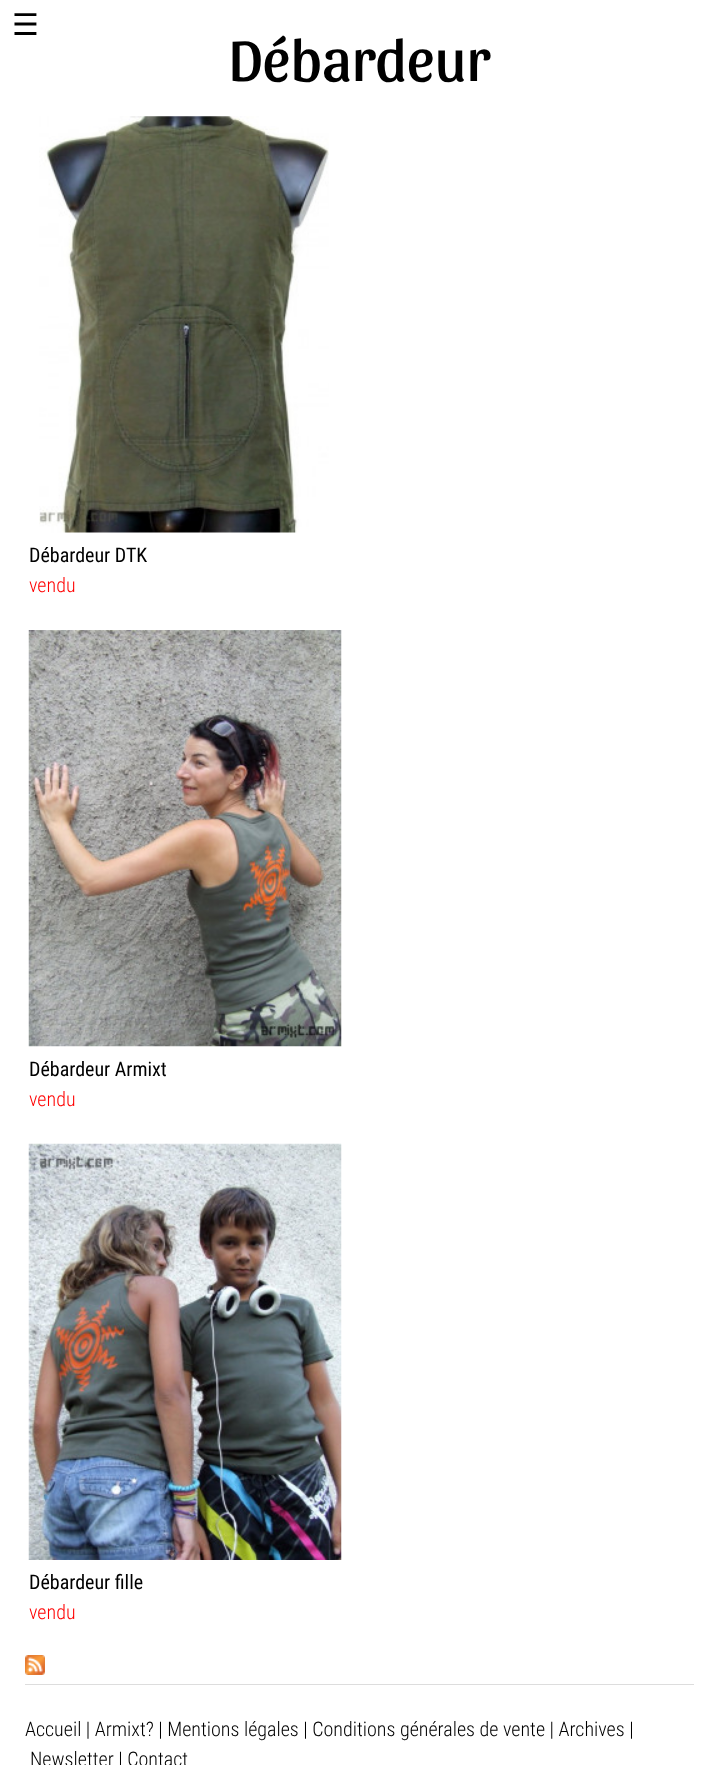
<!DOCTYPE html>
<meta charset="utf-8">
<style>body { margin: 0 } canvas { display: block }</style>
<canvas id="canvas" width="718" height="1765"></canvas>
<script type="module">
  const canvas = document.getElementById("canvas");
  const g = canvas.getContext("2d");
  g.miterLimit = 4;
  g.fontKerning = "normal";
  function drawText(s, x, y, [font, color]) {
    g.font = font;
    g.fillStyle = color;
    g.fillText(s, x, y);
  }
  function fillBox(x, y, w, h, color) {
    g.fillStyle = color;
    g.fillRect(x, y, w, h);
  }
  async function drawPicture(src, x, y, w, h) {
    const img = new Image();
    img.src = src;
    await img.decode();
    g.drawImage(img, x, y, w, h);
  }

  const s1 = ["30px DejaVu Sans", "#000000"];
  const s2 = ["60px Sansita", "#000000"];
  const s3 = ["20px Roboto Condensed", "#000000"];
  const s4 = ["300 20px Roboto Condensed", "#FF0000"];
  const s5 = ["300 20px Roboto Condensed", "#000000"];

  fillBox(0, 0, 718, 1765, "#FFFFFF");
  drawText("☰", 12, 35, s1);
  drawText("Débardeur", 229, 81, s2);
  await drawPicture("pic1.png", 39, 116, 290, 417);
  drawText("Débardeur DTK", 29, 562, s3);
  drawText("vendu", 29, 592, s4);
  await drawPicture("pic2.png", 28, 630, 314, 417);
  drawText("Débardeur Armixt", 29, 1076, s3);
  drawText("vendu", 29, 1106, s4);
  await drawPicture("pic3.png", 28, 1143, 314, 417);
  drawText("Débardeur fille", 29, 1589, s3);
  drawText("vendu", 29, 1619, s4);
  await drawPicture("pic4.png", 25, 1655, 20, 20);
  fillBox(25, 1684, 669, 1, "#DDDDDD");
  drawText("Accueil | Armixt? | Mentions légales | Conditions générales de vente | Archives |", 25, 1736, s5);
  drawText("Newsletter | Contact", 30, 1766, s5);
</script>
